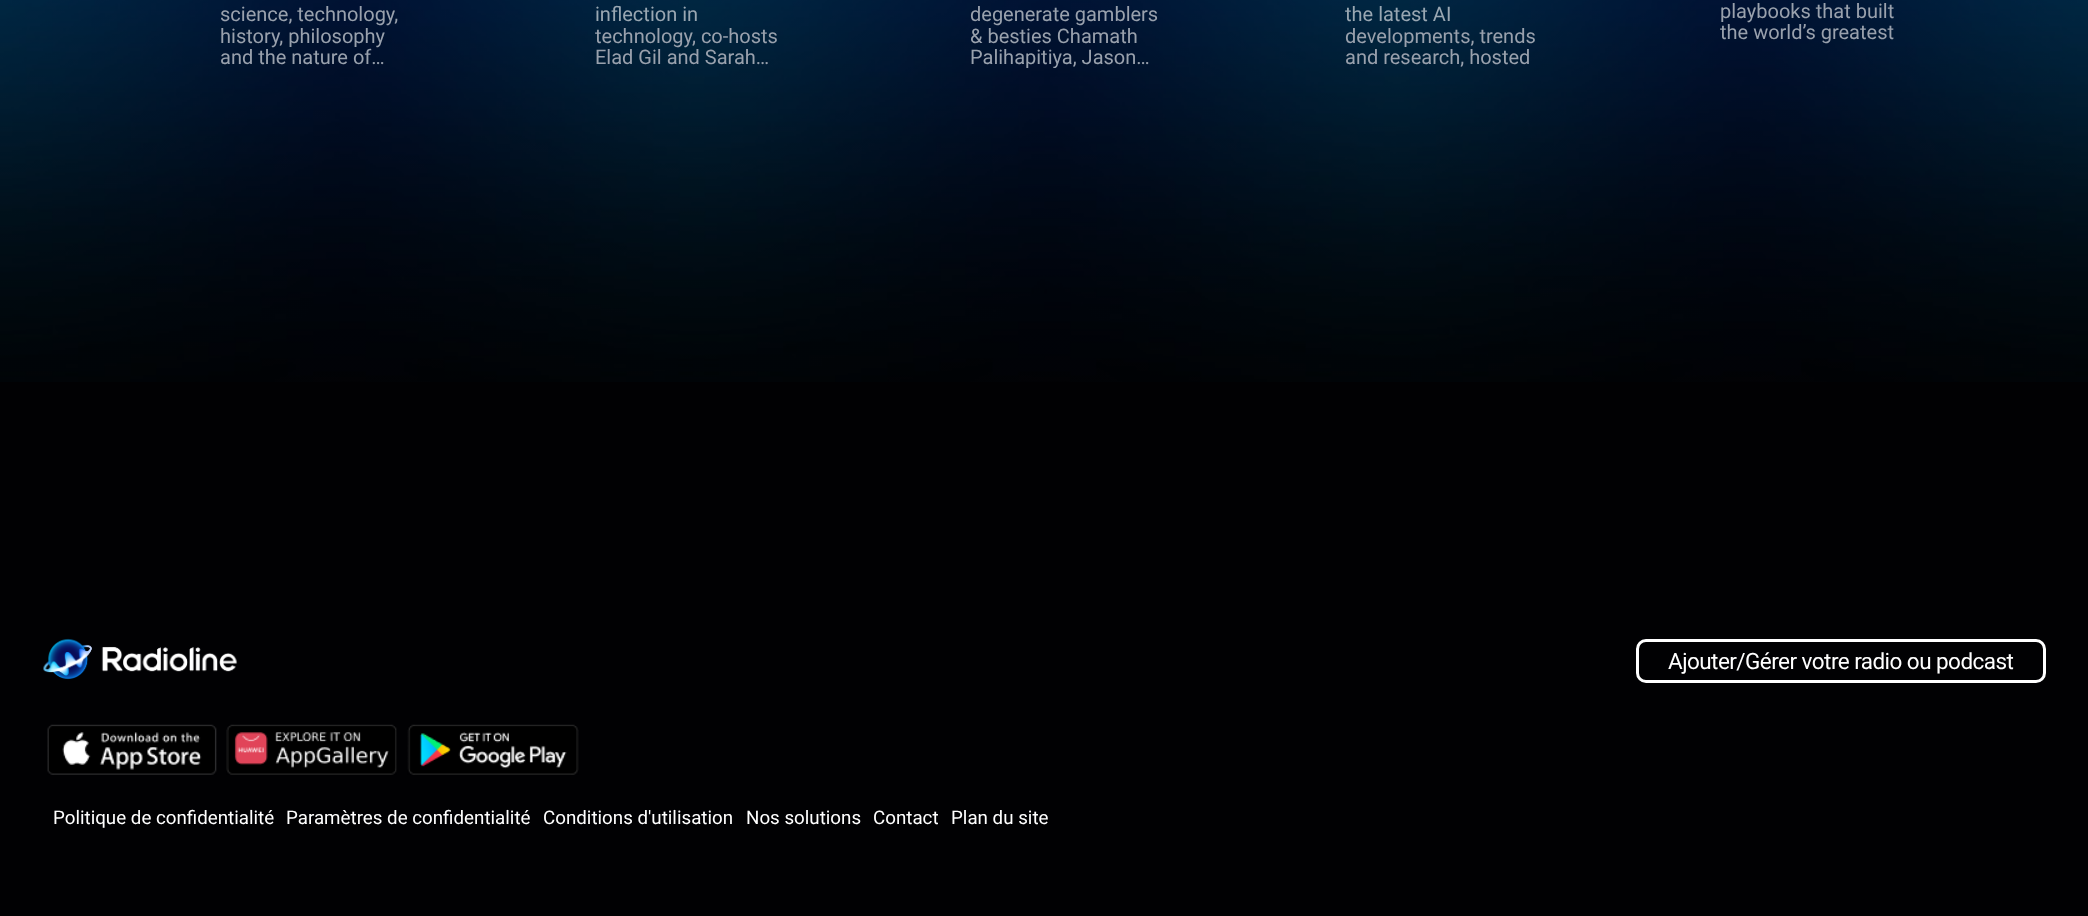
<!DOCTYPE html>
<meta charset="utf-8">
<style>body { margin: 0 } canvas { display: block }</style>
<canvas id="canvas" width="2088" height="916"></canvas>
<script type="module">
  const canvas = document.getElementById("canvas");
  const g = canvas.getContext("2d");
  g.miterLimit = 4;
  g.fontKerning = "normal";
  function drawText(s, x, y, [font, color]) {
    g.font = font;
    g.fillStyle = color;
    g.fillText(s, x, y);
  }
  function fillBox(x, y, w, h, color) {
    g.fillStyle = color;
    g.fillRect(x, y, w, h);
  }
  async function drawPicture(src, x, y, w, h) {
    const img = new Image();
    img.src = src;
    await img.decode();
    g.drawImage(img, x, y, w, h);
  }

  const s1 = ["20px Roboto", "#99A1AD"];
  const s2 = ["20px Roboto", "#99A7B2"];
  const s3 = ["22.5px Roboto", "#FFFFFF"];
  const s4 = ["18.75px Roboto", "#FFFFFF"];

  fillBox(0, 0, 2088, 916, "#010103");
  await drawPicture("pic1.png", 0, 0, 2088, 382);
  drawText("science, technology,", 220, 21, s1);
  drawText("history, philosophy", 220, 43, s1);
  drawText("and the nature of…", 220, 64, s1);
  drawText("inflection in", 595, 21, s2);
  drawText("technology, co-hosts", 595, 43, s1);
  drawText("Elad Gil and Sarah…", 595, 64, s1);
  drawText("degenerate gamblers", 970, 21, s1);
  drawText("& besties Chamath", 970, 43, s1);
  g.save();
  g.beginPath();
  g.rect(970, 0, 198, 68);
  g.clip();
  drawText("Palihapitiya, Jason…", 970, 64, s1);
  g.restore();
  drawText("the latest AI", 1345, 21, s2);
  drawText("developments, trends", 1345, 43, s1);
  drawText("and research, hosted", 1345, 64, s1);
  drawText("playbooks that built", 1720, 18, s1);
  drawText("the world’s greatest", 1720, 39, s1);
  await drawPicture("pic2.png", 43, 638, 195, 42);
  g.beginPath();
  g.roundRect(1637.5, 640.5, 407, 41, 8.5);
  g.strokeStyle = "#FFFFFF";
  g.lineWidth = 3;
  g.stroke();
  g.letterSpacing = "-0.55px";
  drawText("Ajouter/Gérer votre radio ou podcast", 1668, 669, s3);
  await drawPicture("pic3.png", 47, 724, 170, 51);
  await drawPicture("pic4.png", 226, 724, 171, 51);
  await drawPicture("pic5.png", 407, 724, 172, 51);
  g.letterSpacing = "0px";
  drawText("Politique de confidentialité", 53, 824, s4);
  drawText("Paramètres de confidentialité", 286, 824, s4);
  drawText("Conditions d'utilisation", 543, 824, s4);
  drawText("Nos solutions", 746, 824, s4);
  drawText("Contact", 873, 824, s4);
  drawText("Plan du site", 951, 824, s4);
</script>
